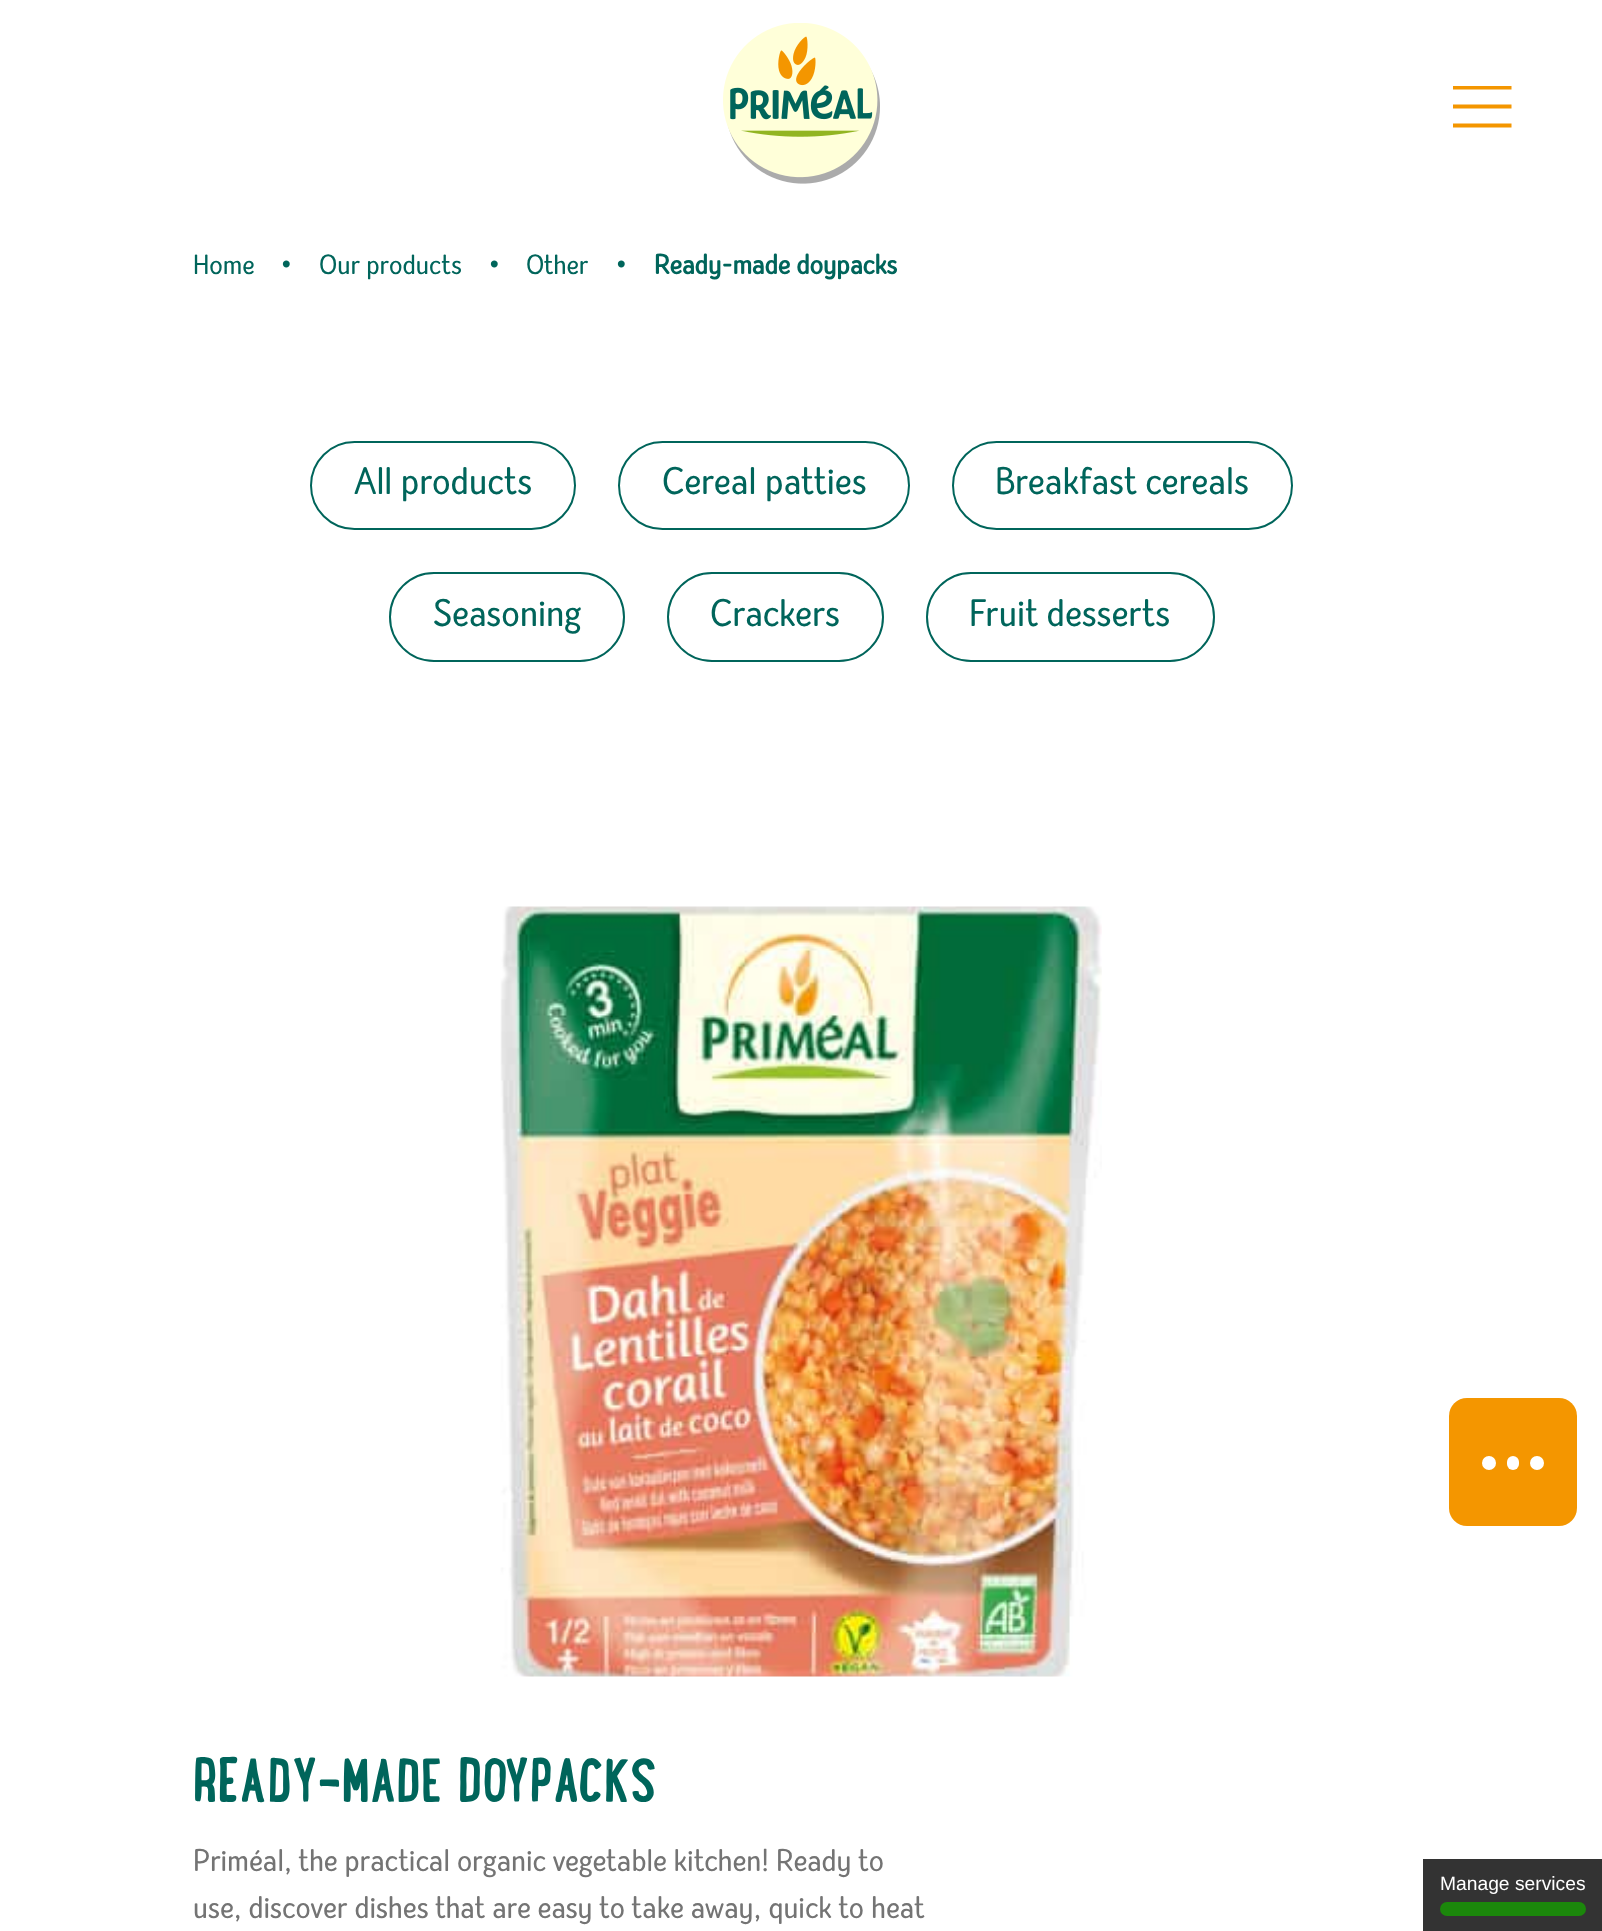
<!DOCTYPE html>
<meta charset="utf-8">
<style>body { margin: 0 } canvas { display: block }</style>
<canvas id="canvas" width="1602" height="1931"></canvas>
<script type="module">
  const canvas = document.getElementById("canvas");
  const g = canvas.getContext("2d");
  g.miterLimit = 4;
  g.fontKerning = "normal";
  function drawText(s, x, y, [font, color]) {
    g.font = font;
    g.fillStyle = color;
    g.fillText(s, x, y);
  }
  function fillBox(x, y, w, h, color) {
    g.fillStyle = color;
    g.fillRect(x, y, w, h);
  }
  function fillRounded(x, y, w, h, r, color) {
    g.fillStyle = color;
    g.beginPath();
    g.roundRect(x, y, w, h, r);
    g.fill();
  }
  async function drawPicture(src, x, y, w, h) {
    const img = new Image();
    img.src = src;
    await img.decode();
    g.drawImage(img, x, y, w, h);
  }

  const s1 = ["28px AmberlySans", "#00655B"];
  const s2 = ["bold 28px AmberlySans", "#00655B"];
  const s3 = ["38.5px AmberlySans", "#00655B"];
  const s4 = ["bold 66.5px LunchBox", "#00655B"];
  const s5 = ["31.5px AmberlySans", "#747474"];
  const s6 = ["19.25px Liberation Sans", "#FFFFFF"];

  fillBox(0, 0, 1602, 1931, "#FFFFFF");
  await drawPicture("pic1.png", 723, 23, 157, 161);
  g.save();
  g.beginPath();
  g.rect(1453, 86, 59, 42);
  g.clip();
  g.beginPath();
  g.moveTo(1452.5, 87.5);
  g.lineTo(1511.5, 87.5);
  g.moveTo(1452.5, 106.5);
  g.lineTo(1511.5, 106.5);
  g.moveTo(1452.5, 125.5);
  g.lineTo(1511.5, 125.5);
  g.strokeStyle = "#F49600";
  g.lineWidth = 3.8;
  g.stroke();
  g.restore();
  drawText("Home", 193, 274, s1);
  drawText("•", 281, 274, s1);
  drawText("Our products", 319, 274, s1);
  drawText("•", 489, 274, s1);
  drawText("Other", 526, 274, s1);
  drawText("•", 616, 274, s1);
  drawText("Ready-made doypacks", 654, 274, s2);
  g.beginPath();
  g.roundRect(311, 442, 264, 87, 43.5);
  g.strokeStyle = "#00655B";
  g.lineWidth = 2;
  g.stroke();
  drawText("All products", 354, 494, s3);
  g.beginPath();
  g.roundRect(619, 442, 290, 87, 43.5);
  g.stroke();
  drawText("Cereal patties", 662, 494, s3);
  g.beginPath();
  g.roundRect(953, 442, 339, 87, 43.5);
  g.stroke();
  drawText("Breakfast cereals", 995, 494, s3);
  g.beginPath();
  g.roundRect(390, 573, 234, 88, 44);
  g.stroke();
  drawText("Seasoning", 433, 626, s3);
  g.beginPath();
  g.roundRect(668, 573, 215, 88, 44);
  g.stroke();
  drawText("Crackers", 710, 626, s3);
  g.beginPath();
  g.roundRect(927, 573, 287, 88, 44);
  g.stroke();
  drawText("Fruit desserts", 969, 626, s3);
  await drawPicture("pic2.png", 500, 906, 602, 771);
  drawText("READY-MADE DOYPACKS", 193, 1802, s4);
  drawText("Priméal, the practical organic vegetable kitchen! Ready to", 193, 1871, s5);
  drawText("use, discover dishes that are easy to take away, quick to heat", 193, 1918, s5);
  fillRounded(1449, 1398, 128, 128, 18, "#F49600");
  g.fillStyle = "#FFFFFF";
  g.beginPath();
  g.arc(1489, 1463, 7, 0, Math.PI * 2);
  g.fill();
  fillRounded(1507, 1456, 12, 14, 6, "#FFFFFF");
  g.beginPath();
  g.arc(1537, 1463, 7, 0, Math.PI * 2);
  g.fill();
  fillBox(1423, 1859, 179, 72, "#333333");
  drawText("Manage services", 1440, 1890, s6);
  fillRounded(1440, 1902, 146, 14, 7, "#1B870B");
</script>
